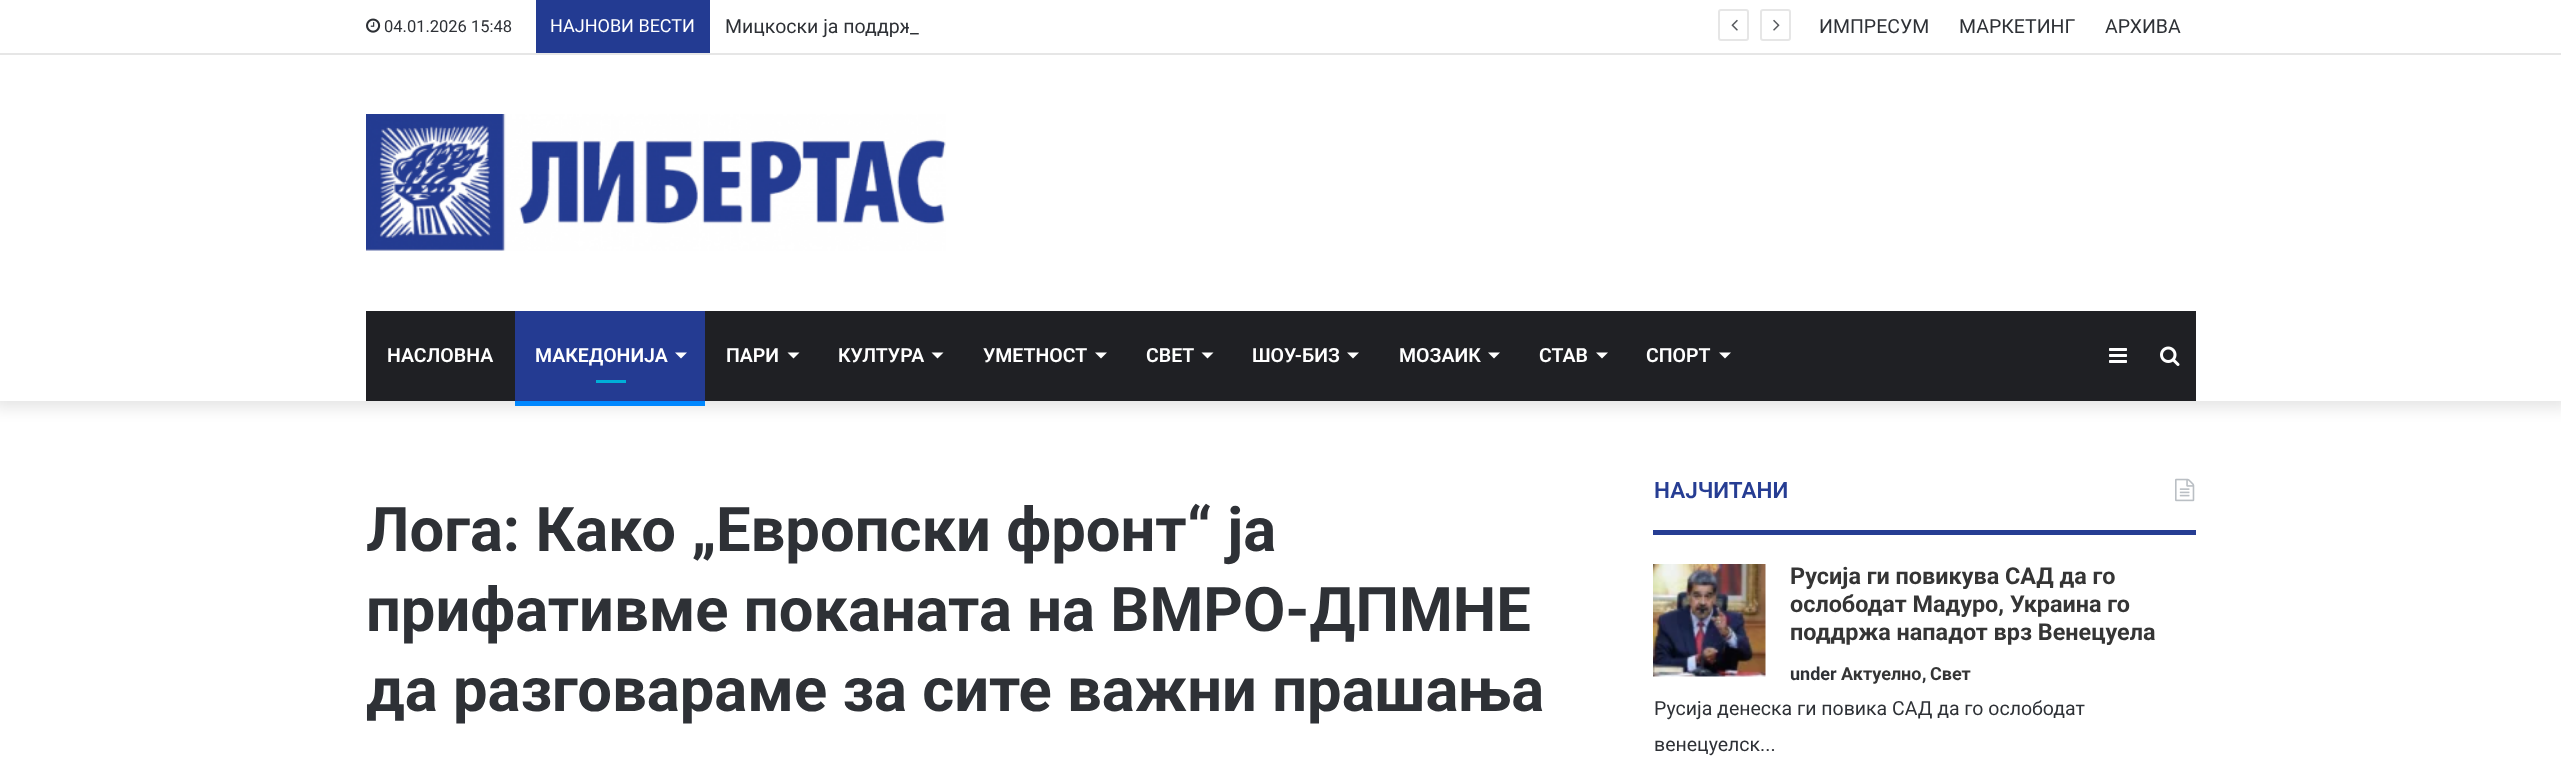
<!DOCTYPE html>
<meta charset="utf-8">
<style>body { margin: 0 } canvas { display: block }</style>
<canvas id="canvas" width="2561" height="760"></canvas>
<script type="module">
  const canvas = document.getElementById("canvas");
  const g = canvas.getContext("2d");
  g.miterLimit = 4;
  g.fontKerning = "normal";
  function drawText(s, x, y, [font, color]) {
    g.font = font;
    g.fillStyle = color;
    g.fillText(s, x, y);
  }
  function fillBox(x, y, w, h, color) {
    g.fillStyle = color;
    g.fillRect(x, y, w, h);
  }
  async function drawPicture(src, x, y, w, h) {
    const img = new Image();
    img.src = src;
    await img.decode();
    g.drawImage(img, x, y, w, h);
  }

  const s1 = ["16.5px Roboto", "#2E3136"];
  const s2 = ["18px Roboto", "#FFFFFF"];
  const s3 = ["19.5px Roboto", "#2E3136"];
  const s4 = ["600 19.5px Roboto", "#FFFFFF"];
  const s5 = ["bold 61.5px Roboto", "#2E3136"];
  const s6 = ["600 22.5px Roboto", "#263D93"];
  const s7 = ["bold 23.4px Roboto", "#353535"];
  const s8 = ["bold 18px Roboto", "#2E3136"];
  const s9 = ["bold 18px Roboto", "#353535"];

  fillBox(0, 0, 2561, 760, "#FFFFFF");
  g.fillStyle = "rgba(0, 0, 0, 0.1)";
  g.filter = "blur(7.5px)";
  g.beginPath();
  g.rect(-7, -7, 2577, 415);
  g.fill();
  g.filter = "none";
  fillBox(0, 0, 2561, 401, "#FFFFFF");
  fillBox(0, 53, 2561, 2, "#E6E6E6");
  await drawPicture("pic1.png", 366, 18, 15, 15);
  drawText("04.01.2026 15:48", 384, 32, s1);
  fillBox(536, 0, 174, 53, "#233B92");
  drawText("НАЈНОВИ ВЕСТИ", 550, 32, s2);
  drawText("Мицкоски ја поддрж", 725, 33, s3);
  fillBox(909, 22, 5, 11, "#FFFFFF");
  drawText("_", 910, 33, s3);
  g.beginPath();
  g.roundRect(1719, 10, 29, 30, 2);
  g.strokeStyle = "#E6E6E6";
  g.lineWidth = 2;
  g.stroke();
  await drawPicture("pic2.png", 1731, 19, 7, 12);
  g.beginPath();
  g.roundRect(1761, 10, 29, 30, 2);
  g.stroke();
  await drawPicture("pic3.png", 1773, 19, 7, 12);
  drawText("ИМПРЕСУМ", 1819, 33, s3);
  drawText("МАРКЕТИНГ", 1959, 33, s3);
  drawText("АРХИВА", 2105, 33, s3);
  await drawPicture("pic4.png", 366, 114, 580, 137);
  fillBox(366, 311, 1830, 90, "#1F2024");
  drawText("НАСЛОВНА", 387, 362, s4);
  fillBox(515, 401, 190, 5, "#0088FF");
  fillBox(515, 311, 190, 90, "#243B92");
  drawText("МАКЕДОНИЈА", 535, 362, s4);
  g.beginPath();
  g.moveTo(675, 352.5);
  g.lineTo(687, 352.5);
  g.lineTo(681, 358.5);
  g.closePath();
  g.fill();
  fillBox(596, 380, 30, 3, "#00AFD8");
  drawText("ПАРИ", 726, 362, s4);
  g.beginPath();
  g.moveTo(787.5, 352.5);
  g.lineTo(799.5, 352.5);
  g.lineTo(793.5, 358.5);
  g.closePath();
  g.fill();
  drawText("КУЛТУРА", 838, 362, s4);
  g.beginPath();
  g.moveTo(931.5, 352.5);
  g.lineTo(943.5, 352.5);
  g.lineTo(937.5, 358.5);
  g.closePath();
  g.fill();
  drawText("УМЕТНОСТ", 983, 362, s4);
  g.beginPath();
  g.moveTo(1095, 352.5);
  g.lineTo(1107, 352.5);
  g.lineTo(1101, 358.5);
  g.closePath();
  g.fill();
  drawText("СВЕТ", 1146, 362, s4);
  g.beginPath();
  g.moveTo(1201.5, 352.5);
  g.lineTo(1213.5, 352.5);
  g.lineTo(1207.5, 358.5);
  g.closePath();
  g.fill();
  drawText("ШОУ-БИЗ", 1252, 362, s4);
  g.beginPath();
  g.moveTo(1347, 352.5);
  g.lineTo(1359, 352.5);
  g.lineTo(1353, 358.5);
  g.closePath();
  g.fill();
  drawText("МОЗАИК", 1399, 362, s4);
  g.beginPath();
  g.moveTo(1488, 352.5);
  g.lineTo(1500, 352.5);
  g.lineTo(1494, 358.5);
  g.closePath();
  g.fill();
  drawText("СТАВ", 1539, 362, s4);
  g.beginPath();
  g.moveTo(1596, 352.5);
  g.lineTo(1608, 352.5);
  g.lineTo(1602, 358.5);
  g.closePath();
  g.fill();
  drawText("СПОРТ", 1646, 362, s4);
  g.beginPath();
  g.moveTo(1719, 352.5);
  g.lineTo(1731, 352.5);
  g.lineTo(1725, 358.5);
  g.closePath();
  g.fill();
  await drawPicture("pic5.png", 2109, 348, 18, 15);
  await drawPicture("pic6.png", 2160, 346, 20, 20);
  drawText("Лога: Како „Европски фронт“ ја", 366, 551, s5);
  drawText("прифативме поканата на ВМРО-ДПМНЕ", 366, 631, s5);
  drawText("да разговараме за сите важни прашања", 366, 711, s5);
  fillBox(1653, 530, 543, 5, "#263D93");
  drawText("НАЈЧИТАНИ", 1654, 498, s6);
  await drawPicture("pic7.png", 2175, 478, 20, 24);
  await drawPicture("pic8.png", 1653, 564, 113, 113);
  drawText("Русија ги повикува САД да го", 1790, 584, s7);
  drawText("ослободат Мадуро, Украина го", 1790, 612, s7);
  drawText("поддржа нападот врз Венецуела", 1790, 640, s7);
  drawText("under", 1790, 680, s8);
  drawText("Актуелно", 1841, 680, s9);
  drawText(",", 1922, 680, s8);
  drawText("Свет", 1930, 680, s9);
  drawText("Русија денеска ги повика САД да го ослободат", 1654, 715, s3);
  drawText("венецуелск...", 1654, 751, s3);
</script>
